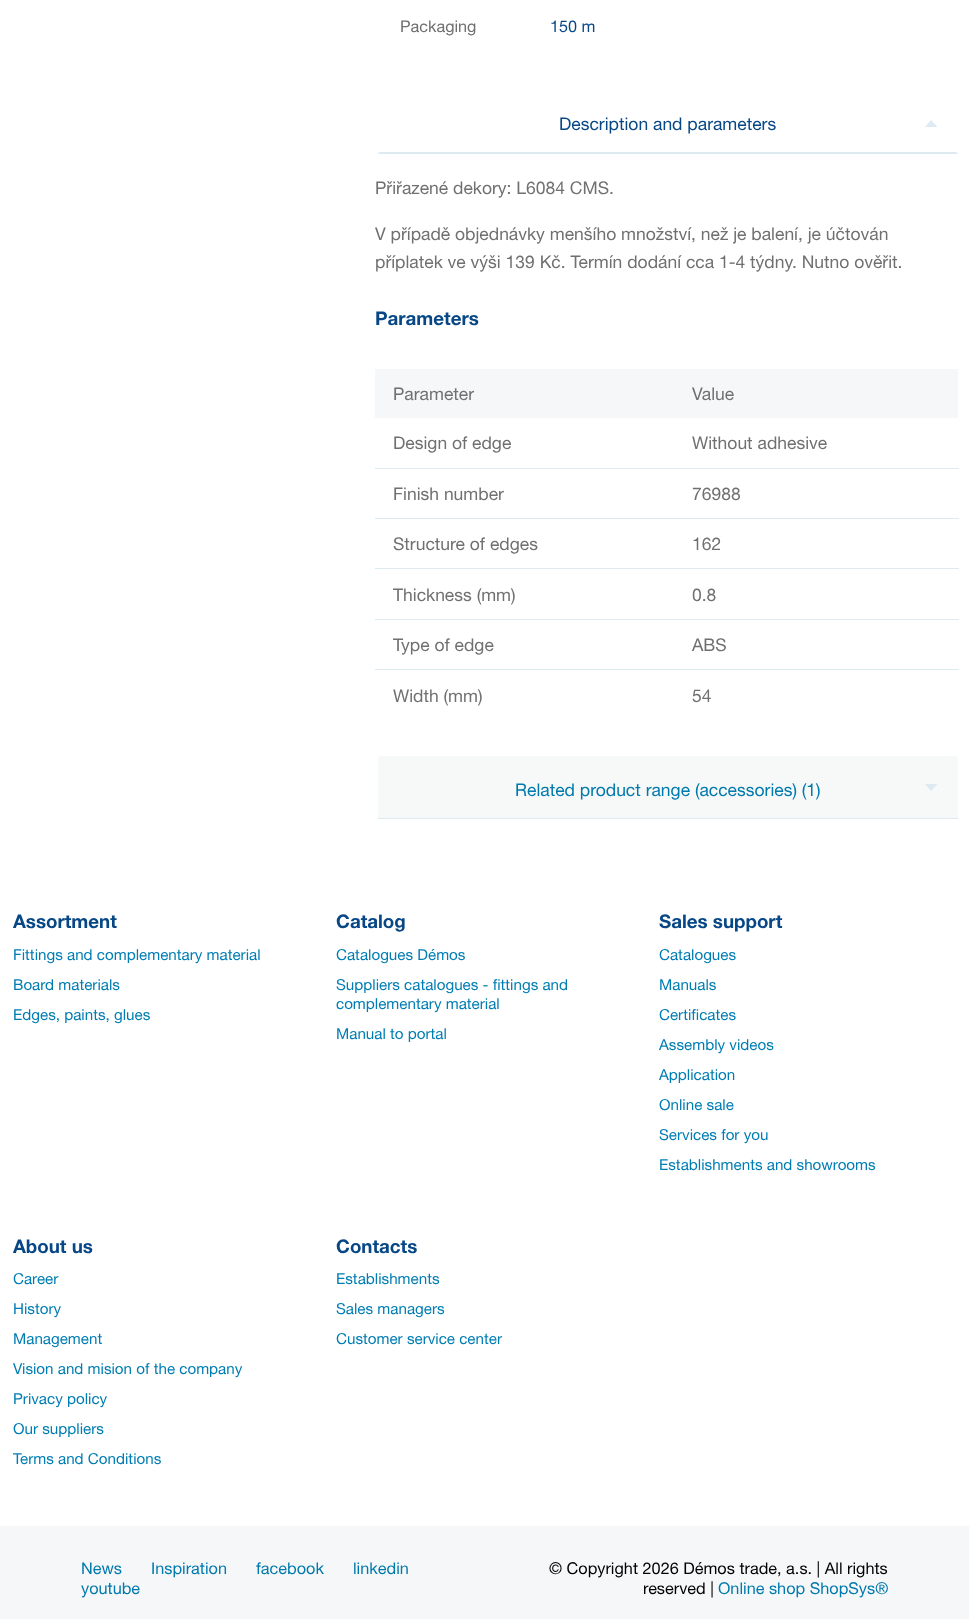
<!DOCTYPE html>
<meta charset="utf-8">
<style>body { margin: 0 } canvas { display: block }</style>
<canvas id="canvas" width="969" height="1619"></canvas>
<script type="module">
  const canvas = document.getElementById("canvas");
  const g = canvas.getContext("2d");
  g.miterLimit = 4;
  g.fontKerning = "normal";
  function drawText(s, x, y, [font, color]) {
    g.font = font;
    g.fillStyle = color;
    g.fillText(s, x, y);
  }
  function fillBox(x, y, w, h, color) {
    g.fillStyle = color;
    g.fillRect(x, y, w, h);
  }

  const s1 = ["16.25px Helvetica Neue", "#707070"];
  const s2 = ["16.25px Helvetica Neue", "#074786"];
  const s3 = ["17.5px Helvetica Neue", "#074786"];
  const s4 = ["17.5px Helvetica Neue", "#707070"];
  const s5 = ["bold 18.75px Helvetica Neue", "#074786"];
  const s6 = ["17.5px Helvetica Neue", "#0079AD"];
  const s7 = ["15.2px Helvetica Neue", "#007DB3"];
  const s8 = ["16.3px Helvetica Neue", "#0079AD"];
  const s9 = ["16.3px Helvetica Neue", "#000000"];

  fillBox(0, 0, 969, 1619, "#FFFFFF");
  drawText("Packaging", 400, 32, s1);
  drawText("150 m", 550, 32, s2);
  g.fillStyle = "#DDEAF2";
  g.beginPath();
  g.moveTo(958, 154);
  g.lineTo(378, 154);
  g.lineTo(379, 152);
  g.lineTo(956, 152);
  g.closePath();
  g.fill();
  drawText("Description and parameters", 559, 130, s3);
  g.fillStyle = "#DDEAF2";
  g.beginPath();
  g.moveTo(937.5, 127);
  g.lineTo(931, 120);
  g.lineTo(925, 127);
  g.closePath();
  g.fill();
  drawText("Přiřazené dekory: L6084 CMS.", 375, 194, s4);
  drawText("V případě objednávky menšího množství, než je balení, je účtován", 375, 240, s4);
  drawText("příplatek ve výši 139 Kč. Termín dodání cca 1-4 týdny. Nutno ověřit.", 375, 268, s4);
  drawText("Parameters", 375, 325, s5);
  fillBox(375, 369, 583, 49, "#F5F7F8");
  drawText("Parameter", 393, 400, s4);
  drawText("Value", 692, 400, s4);
  drawText("Design of edge", 393, 449, s4);
  drawText("Without adhesive", 692, 449, s4);
  fillBox(375, 468, 584, 1, "#DDEAF2");
  drawText("Finish number", 393, 500, s4);
  drawText("76988", 692, 500, s4);
  fillBox(375, 518, 584, 1, "#DDEAF2");
  drawText("Structure of edges", 393, 550, s4);
  drawText("162", 692, 550, s4);
  fillBox(375, 568, 584, 1, "#DDEAF2");
  drawText("Thickness (mm)", 393, 601, s4);
  drawText("0.8", 692, 601, s4);
  fillBox(375, 619, 584, 1, "#DDEAF2");
  drawText("Type of edge", 393, 651, s4);
  drawText("ABS", 692, 651, s4);
  fillBox(375, 669, 584, 1, "#DDEAF2");
  drawText("Width (mm)", 393, 702, s4);
  drawText("54", 692, 702, s4);
  g.fillStyle = "#F7F8F8";
  g.beginPath();
  g.roundRect(378, 756, 580, 63, [2.5, 2.5, 0, 0]);
  g.fill();
  g.fillStyle = "#DDEAF2";
  g.beginPath();
  g.moveTo(958, 819);
  g.lineTo(378, 819);
  g.lineTo(379, 817);
  g.lineTo(379, 818);
  g.lineTo(956, 818);
  g.lineTo(956, 817);
  g.closePath();
  g.fill();
  drawText("Related product range (accessories) (1)", 515, 796, s6);
  g.fillStyle = "#DDEAF2";
  g.beginPath();
  g.moveTo(925, 784);
  g.lineTo(931, 791);
  g.lineTo(937.5, 784);
  g.closePath();
  g.fill();
  drawText("Assortment", 13, 928, s5);
  drawText("Fittings and complementary material", 13, 960, s7);
  drawText("Board materials", 13, 990, s7);
  drawText("Edges, paints, glues", 13, 1020, s7);
  drawText("Catalog", 336, 928, s5);
  drawText("Catalogues Démos", 336, 960, s7);
  drawText("Suppliers catalogues - fittings and", 336, 990, s7);
  drawText("complementary material", 336, 1009, s7);
  drawText("Manual to portal", 336, 1039, s7);
  drawText("Sales support", 659, 928, s5);
  drawText("Catalogues", 659, 960, s7);
  drawText("Manuals", 659, 990, s7);
  drawText("Certificates", 659, 1020, s7);
  drawText("Assembly videos", 659, 1050, s7);
  drawText("Application", 659, 1080, s7);
  drawText("Online sale", 659, 1110, s7);
  drawText("Services for you", 659, 1140, s7);
  drawText("Establishments and showrooms", 659, 1170, s7);
  drawText("About us", 13, 1253, s5);
  drawText("Career", 13, 1284, s7);
  drawText("History", 13, 1314, s7);
  drawText("Management", 13, 1344, s7);
  drawText("Vision and mision of the company", 13, 1374, s7);
  drawText("Privacy policy", 13, 1404, s7);
  drawText("Our suppliers", 13, 1434, s7);
  drawText("Terms and Conditions", 13, 1464, s7);
  drawText("Contacts", 336, 1253, s5);
  drawText("Establishments", 336, 1284, s7);
  drawText("Sales managers", 336, 1314, s7);
  drawText("Customer service center", 336, 1344, s7);
  fillBox(0, 1526, 969, 93, "#F5F7F8");
  drawText("News", 81, 1574, s8);
  drawText("Inspiration", 151, 1574, s8);
  drawText("facebook", 256, 1574, s8);
  drawText("linkedin", 353, 1574, s8);
  drawText("youtube", 81, 1594, s8);
  drawText("© Copyright 2026 Démos trade, a.s. | All rights", 549, 1574, s9);
  drawText("reserved |", 643, 1594, s9);
  drawText("Online shop ShopSys®", 718, 1594, s8);
</script>
